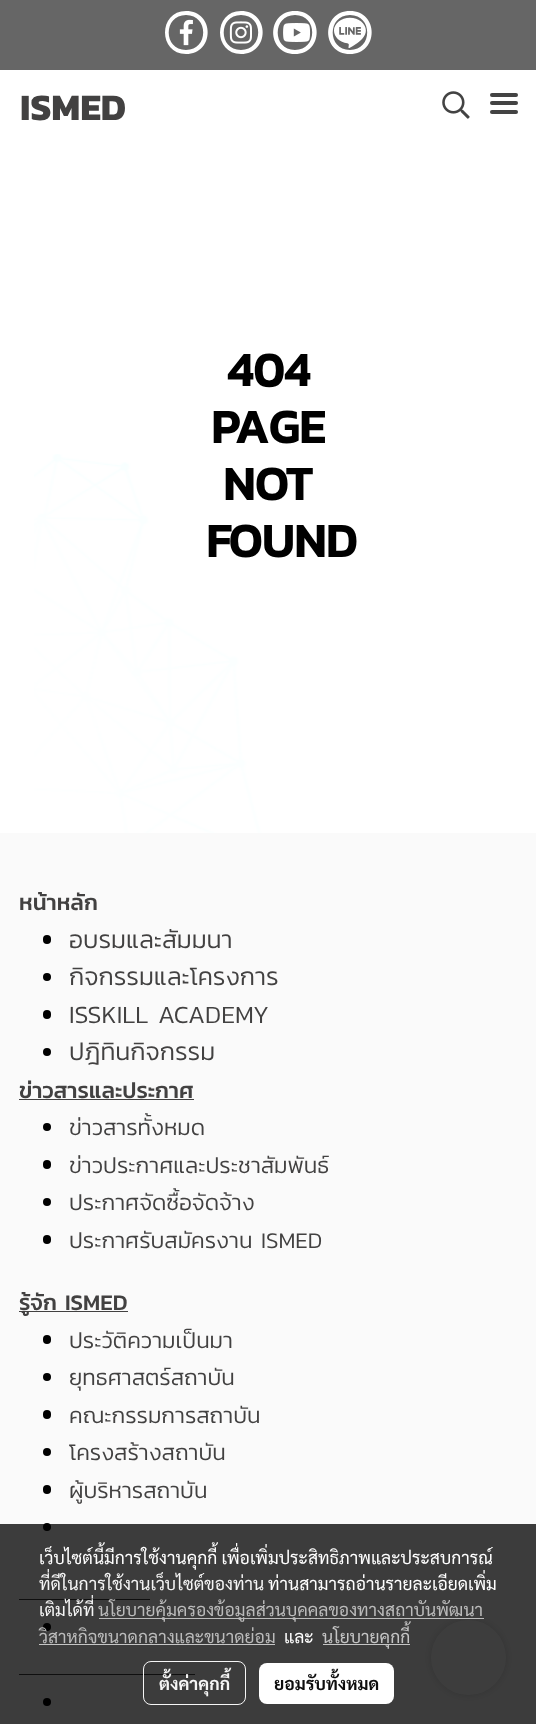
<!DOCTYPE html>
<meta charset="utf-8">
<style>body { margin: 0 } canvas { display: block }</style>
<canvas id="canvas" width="536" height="1724"></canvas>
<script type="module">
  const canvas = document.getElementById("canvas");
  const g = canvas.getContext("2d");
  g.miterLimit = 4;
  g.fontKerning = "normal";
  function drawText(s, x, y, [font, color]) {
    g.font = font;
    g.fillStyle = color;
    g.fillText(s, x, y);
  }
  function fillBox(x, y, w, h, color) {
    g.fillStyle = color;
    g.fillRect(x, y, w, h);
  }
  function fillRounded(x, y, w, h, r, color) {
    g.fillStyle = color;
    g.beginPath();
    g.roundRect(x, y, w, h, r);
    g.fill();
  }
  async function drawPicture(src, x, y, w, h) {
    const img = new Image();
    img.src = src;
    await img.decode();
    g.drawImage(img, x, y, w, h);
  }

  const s1 = ["bold 37.5px 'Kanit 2'", "#424141"];
  const s2 = ["bold 47.5px Kanit", "#000000"];
  const s3 = ["500 22.5px Kanit", "#424141"];
  const s4 = ["300 25px Kanit", "#424141"];
  const s5 = ["300 22.5px Kanit", "#424141"];
  const s6 = ["17.5px Sarabun", "#FFFFFF"];
  const s7 = ["17.5px Sarabun", "#F5F5F5"];
  const s8 = ["17.5px Sarabun", "#BBBBBB"];
  const s9 = ["17.5px Sarabun", "#C5C5C5"];
  const s10 = ["bold 17.5px Sarabun", "#F5F5F5"];
  const s11 = ["bold 17.5px Sarabun", "#0D0D0D"];

  fillBox(0, 0, 536, 1724, "#FFFFFF");
  await drawPicture("pic1.png", 34, 454, 235, 379);
  fillBox(0, 0, 536, 70, "#666666");
  g.fillStyle = "#FFFFFF";
  g.beginPath();
  g.moveTo(186, 11);
  g.bezierCurveTo(158, 11, 158, 54, 186, 54);
  g.bezierCurveTo(215, 54, 215, 11, 186, 11);
  g.closePath();
  g.moveTo(186, 50);
  g.bezierCurveTo(163, 50, 163, 15, 186, 15);
  g.bezierCurveTo(209, 15, 209, 50, 186, 50);
  g.closePath();
  g.fill();
  await drawPicture("pic2.png", 179, 19, 14, 27);
  g.beginPath();
  g.moveTo(241, 11);
  g.bezierCurveTo(213, 11, 213, 54, 241, 54);
  g.bezierCurveTo(270, 54, 270, 11, 241, 11);
  g.closePath();
  g.moveTo(241, 50);
  g.bezierCurveTo(218, 50, 218, 15, 241, 15);
  g.bezierCurveTo(264, 15, 264, 50, 241, 50);
  g.closePath();
  g.fill();
  await drawPicture("pic3.png", 229, 21, 23, 23);
  g.beginPath();
  g.moveTo(295, 11);
  g.bezierCurveTo(266, 11, 266, 54, 295, 54);
  g.bezierCurveTo(324, 54, 324, 11, 295, 11);
  g.closePath();
  g.moveTo(295, 50);
  g.bezierCurveTo(272, 50, 272, 15, 295, 15);
  g.bezierCurveTo(318, 15, 318, 50, 295, 50);
  g.closePath();
  g.fill();
  await drawPicture("pic4.png", 283, 23, 28, 19);
  g.beginPath();
  g.moveTo(350, 11);
  g.bezierCurveTo(321, 11, 321, 54, 350, 54);
  g.bezierCurveTo(379, 54, 379, 11, 350, 11);
  g.closePath();
  g.moveTo(350, 50);
  g.bezierCurveTo(327, 50, 327, 15, 350, 15);
  g.bezierCurveTo(373, 15, 373, 50, 350, 50);
  g.closePath();
  g.fill();
  await drawPicture("pic5.png", 334, 10, 32, 45);
  drawText("ISMED", 20, 120, s1);
  await drawPicture("pic6.png", 442, 91, 28, 28);
  fillRounded(490, 101, 28, 4, 2, "#434343");
  fillRounded(490, 93, 28, 4, 2, "#434343");
  fillRounded(490, 110, 28, 4, 2, "#434343");
  drawText("404", 227, 386, s2);
  drawText("PAGE", 211, 443, s2);
  drawText("NOT", 223, 500, s2);
  drawText("FOUND", 206, 557, s2);
  fillBox(0, 833, 536, 891, "#FAFAFA");
  drawText("หน้าหลัก", 19, 910, s3);
  fillRounded(43, 935, 8, 9, 4, "#000000");
  drawText("อบรมและสัมมนา", 69, 948, s4);
  g.fillStyle = "#000000";
  g.beginPath();
  g.arc(47, 977, 4, 0, Math.PI * 2);
  g.fill();
  drawText("กิจกรรมและโครงการ", 69, 985, s4);
  fillRounded(43, 1010, 8, 9, 4, "#000000");
  drawText("ISSKILL ACADEMY", 69, 1023, s4);
  g.fillStyle = "#000000";
  g.beginPath();
  g.arc(47, 1052, 4, 0, Math.PI * 2);
  g.fill();
  drawText("ปฎิทินกิจกรรม", 69, 1060, s4);
  drawText("ข่าวสารและประกาศ", 19, 1098, s3);
  fillBox(19, 1099, 175, 1, "#424141");
  g.fillStyle = "#000000";
  g.beginPath();
  g.arc(47, 1127, 4, 0, Math.PI * 2);
  g.fill();
  drawText("ข่าวสารทั้งหมด", 69, 1135, s5);
  fillRounded(43, 1160, 8, 9, 4, "#000000");
  drawText("ข่าวประกาศและประชาสัมพันธ์", 69, 1173, s5);
  g.fillStyle = "#000000";
  g.beginPath();
  g.arc(47, 1202, 4, 0, Math.PI * 2);
  g.fill();
  drawText("ประกาศจัดซื้อจัดจ้าง", 69, 1210, s5);
  fillRounded(43, 1235, 8, 9, 4, "#000000");
  drawText("ประกาศรับสมัครงาน ISMED", 69, 1248, s5);
  fillBox(19, 1311, 109, 1, "#424141");
  drawText("รู้จัก ISMED", 19, 1310, s3);
  fillRounded(43, 1335, 8, 9, 4, "#000000");
  drawText("ประวัติความเป็นมา", 69, 1348, s5);
  g.fillStyle = "#000000";
  g.beginPath();
  g.arc(47, 1377, 4, 0, Math.PI * 2);
  g.fill();
  drawText("ยุทธศาสตร์สถาบัน", 69, 1385, s5);
  fillRounded(43, 1410, 8, 9, 4, "#000000");
  drawText("คณะกรรมการสถาบัน", 69, 1423, s5);
  g.fillStyle = "#000000";
  g.beginPath();
  g.arc(47, 1452, 4, 0, Math.PI * 2);
  g.fill();
  drawText("โครงสร้างสถาบัน", 69, 1460, s5);
  fillRounded(43, 1485, 8, 9, 4, "#000000");
  drawText("ผู้บริหารสถาบัน", 69, 1498, s5);
  g.fillStyle = "#000000";
  g.beginPath();
  g.arc(47, 1527, 4, 0, Math.PI * 2);
  g.fill();
  fillBox(19, 1599, 131, 1, "#424141");
  g.fillStyle = "#000000";
  g.beginPath();
  g.arc(47, 1627, 4, 0, Math.PI * 2);
  g.fill();
  fillBox(19, 1674, 176, 1, "#424141");
  g.fillStyle = "#000000";
  g.beginPath();
  g.arc(47, 1702, 4, 0, Math.PI * 2);
  g.fill();
  g.fillStyle = "rgba(0, 0, 0, 0.14)";
  g.filter = "blur(4.5px)";
  g.beginPath();
  g.roundRect(431, 1620, 75, 75, 37.5);
  g.fill();
  g.filter = "none";
  g.fillStyle = "#FFFFFF";
  g.beginPath();
  g.arc(468.5, 1657.5, 37.5, 0, Math.PI * 2);
  g.fill();
  fillBox(0, 1524, 536, 200, "rgba(0, 0, 0, 0.76)");
  drawText("เว็บไซต์นี้มีการใช้งานคุกกี้ เพื่อเพิ่มประสิทธิภาพและประสบการณ์", 39, 1564, s6);
  drawText("ที่ดีในการใช้งานเว็บไซต์ของท่าน", 39, 1590, s7);
  drawText("ท่านสามารถอ่านรายละเอียดเพิ่ม", 268, 1590, s6);
  drawText("เติมได้ที่", 39, 1616, s7);
  fillBox(99, 1618, 385, 1, "rgba(194, 194, 194, 0.95)");
  drawText("นโยบายคุ้มครองข้อมูลส่วนบุคคลของทางสถาบันพัฒนา", 98, 1616, s8);
  drawText("วิสาหกิจขนาดกลางและขนาดย่อม", 39, 1643, s8);
  fillBox(39, 1644, 236, 1, "#C5C5C5");
  drawText("และ", 284, 1643, s6);
  fillBox(323, 1644, 87, 1, "#C5C5C5");
  drawText("นโยบายคุกกี้", 322, 1643, s9);
  g.beginPath();
  g.roundRect(143.5, 1661.5, 102, 43, 7.5);
  g.strokeStyle = "rgba(255, 255, 255, 0.95)";
  g.stroke();
  drawText("ตั้งค่าคุกกี้", 159, 1690, s10);
  fillRounded(259, 1663, 135, 41, 8, "#FFFFFF");
  drawText("ยอมรับทั้งหมด", 274, 1690, s11);
</script>
